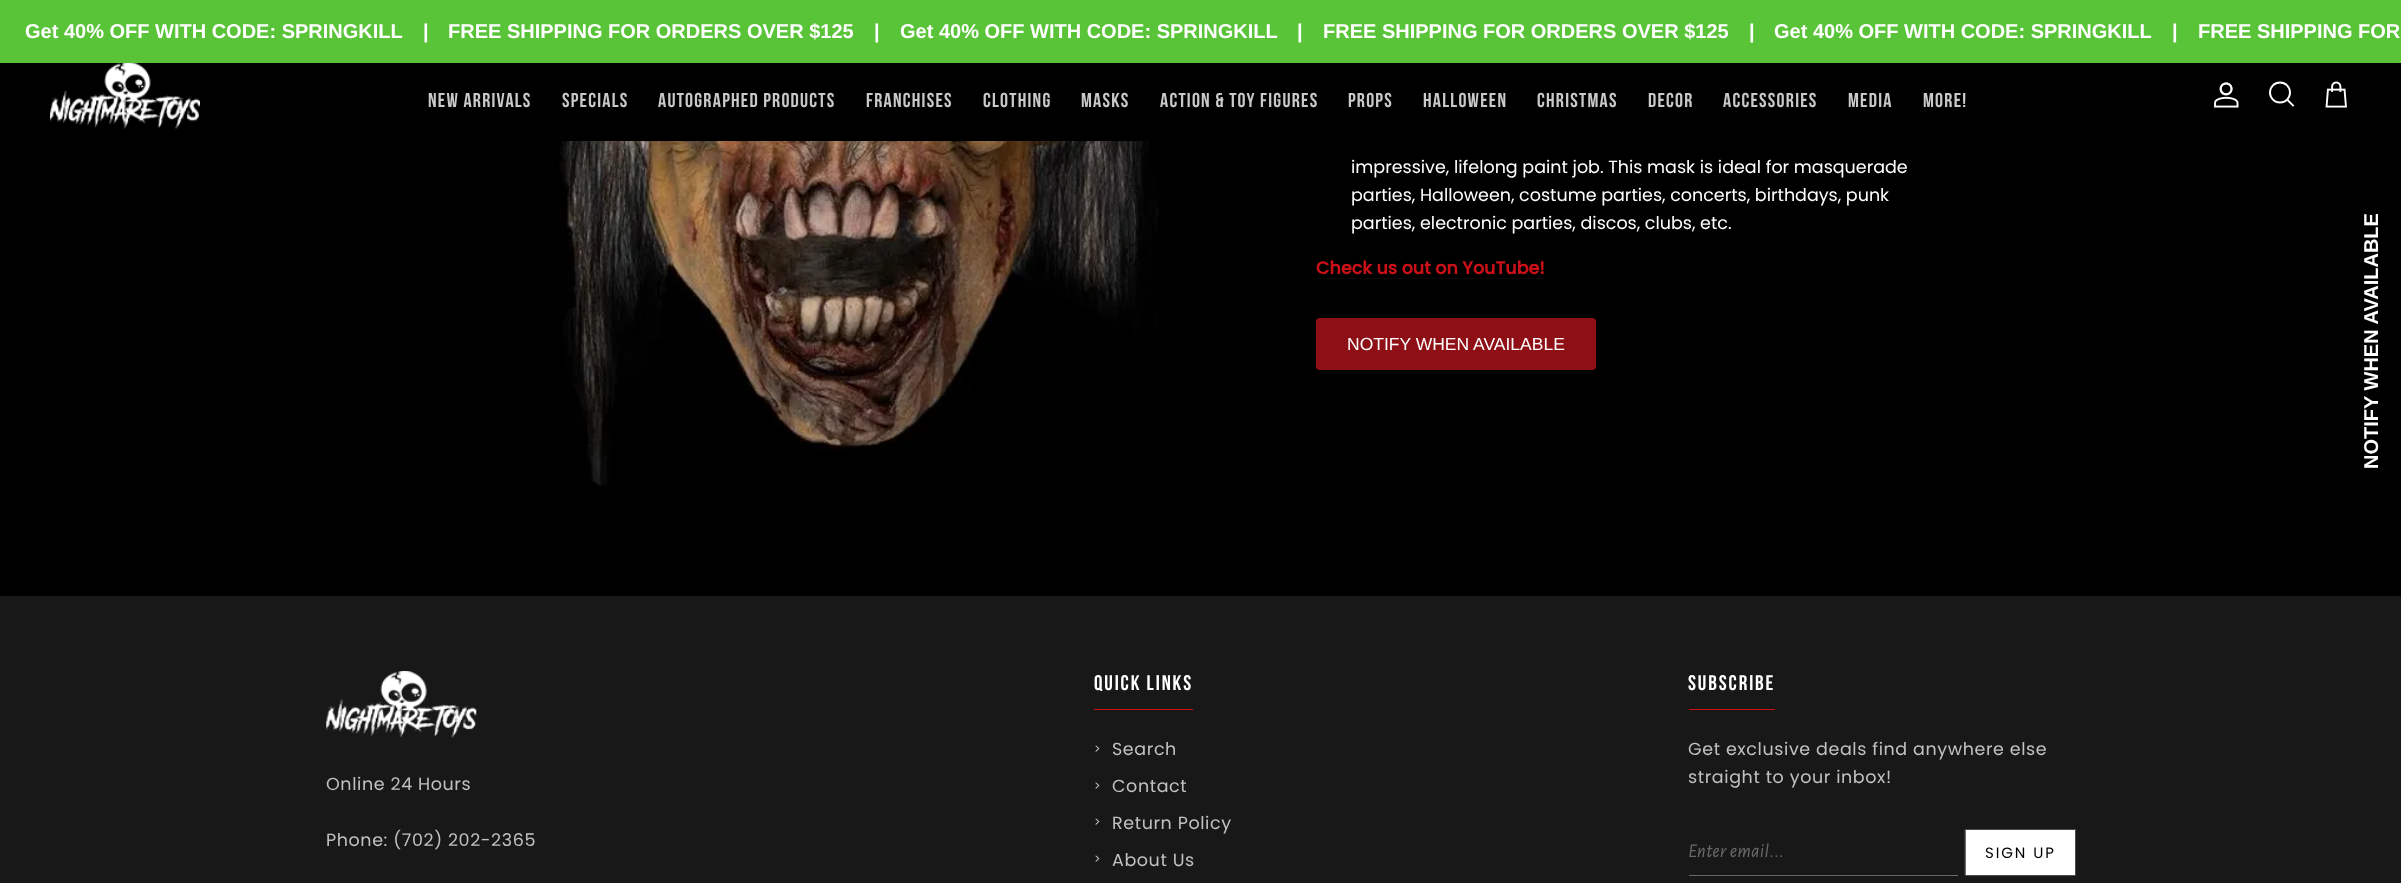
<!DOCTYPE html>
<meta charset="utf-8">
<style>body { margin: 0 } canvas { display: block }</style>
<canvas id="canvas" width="2401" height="883"></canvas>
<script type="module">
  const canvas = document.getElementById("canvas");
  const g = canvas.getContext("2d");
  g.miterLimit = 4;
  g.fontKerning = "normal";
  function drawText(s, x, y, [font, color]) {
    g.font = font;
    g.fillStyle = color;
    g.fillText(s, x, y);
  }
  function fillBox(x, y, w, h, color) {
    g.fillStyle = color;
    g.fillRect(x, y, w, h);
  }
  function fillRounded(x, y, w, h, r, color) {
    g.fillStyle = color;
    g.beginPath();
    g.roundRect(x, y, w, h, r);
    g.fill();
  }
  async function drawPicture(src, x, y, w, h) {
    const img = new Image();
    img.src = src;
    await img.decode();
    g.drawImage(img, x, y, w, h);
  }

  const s1 = ["bold 20px Arimo", "#FFFFFF"];
  const s2 = ["20.1px Bebas Neue", "#C9C9C9"];
  const s3 = ["17.5px Poppins", "#FFFFFF"];
  const s4 = ["bold 17.5px Poppins", "#CC1018"];
  const s5 = ["17.5px Arimo", "#FFFFFF"];
  const s6 = ["17.5px Poppins", "#C1C1C1"];
  const s7 = ["21.25px Bebas Neue", "#FFFFFF"];
  const s8 = ["12px Poppins", "#C1C1C1"];
  const s9 = ["italic bold 18.75px Alegreya Sans", "#676869"];
  const s10 = ["15px Poppins", "#000000"];

  fillBox(0, 0, 2401, 883, "#000000");
  fillBox(0, 0, 2401, 63, "#5AC439");
  drawText("Get 40% OFF WITH CODE: SPRINGKILL", 25, 38, s1);
  drawText("|", 423, 38, s1);
  drawText("FREE SHIPPING FOR ORDERS OVER $125", 448, 38, s1);
  drawText("|", 874, 38, s1);
  drawText("Get 40% OFF WITH CODE: SPRINGKILL", 900, 38, s1);
  drawText("|", 1297, 38, s1);
  drawText("FREE SHIPPING FOR ORDERS OVER $125", 1323, 38, s1);
  drawText("|", 1749, 38, s1);
  drawText("Get 40% OFF WITH CODE: SPRINGKILL", 1774, 38, s1);
  drawText("|", 2172, 38, s1);
  drawText("FREE SHIPPING FOR", 2198, 38, s1);
  await drawPicture("pic1.png", 50, 63, 150, 66);
  g.letterSpacing = "1.25px";
  drawText("New Arrivals", 428, 107, s2);
  drawText("Specials", 562, 107, s2);
  drawText("Autographed Products", 658, 107, s2);
  drawText("Franchises", 866, 107, s2);
  drawText("Clothing", 983, 107, s2);
  drawText("Masks", 1081, 107, s2);
  drawText("Action & Toy Figures", 1160, 107, s2);
  drawText("Props", 1348, 107, s2);
  drawText("Halloween", 1423, 107, s2);
  drawText("Christmas", 1537, 107, s2);
  drawText("Decor", 1648, 107, s2);
  drawText("Accessories", 1723, 107, s2);
  drawText("Media", 1848, 107, s2);
  drawText("More!", 1923, 107, s2);
  await drawPicture("pic2.png", 2214, 82, 25, 26);
  g.beginPath();
  g.arc(2280, 92.5, 10, 0, Math.PI * 2);
  g.strokeStyle = "#FFFFFF";
  g.lineWidth = 1.9;
  g.stroke();
  g.beginPath();
  g.moveTo(2287.5, 100);
  g.lineTo(2293, 105.5);
  g.lineCap = "square";
  g.stroke();
  await drawPicture("pic3.png", 2325, 81, 22, 27);
  await drawPicture("pic4.png", 559, 141, 600, 345);
  g.letterSpacing = "0px";
  drawText("impressive, lifelong paint job. This mask is ideal for masquerade", 1351, 173, s3);
  drawText("parties, Halloween, costume parties, concerts, birthdays, punk", 1351, 201, s3);
  drawText("parties, electronic parties, discos, clubs, etc.", 1351, 229, s3);
  drawText("Check us out on YouTube!", 1316, 274, s4);
  fillBox(1316, 278, 229, 1, "#090909");
  fillRounded(1316, 318, 280, 52, 4, "#8F0F16");
  drawText("NOTIFY WHEN AVAILABLE", 1347, 350, s5);
  g.font = "bold 20px Liberation Sans";
  g.save();
  g.translate(2378, 469);
  g.rotate(-90 * Math.PI / 180);
  g.fillText("NOTIFY WHEN AVAILABLE", 0, 0);
  g.restore();
  fillBox(0, 596, 2401, 287, "#181818");
  await drawPicture("pic5.png", 326, 671, 151, 67);
  g.letterSpacing = "0.6px";
  drawText("Online 24 Hours", 326, 790, s6);
  drawText("Phone: (702) 202-2365", 326, 846, s6);
  fillBox(1094, 709, 99, 1, "#CC1115");
  g.letterSpacing = "1.9px";
  drawText("QUICK LINKS", 1094, 690, s7);
  g.letterSpacing = "0px";
  drawText(">", 1094, 753, s8);
  g.letterSpacing = "0.6px";
  drawText("Search", 1112, 755, s6);
  g.letterSpacing = "0px";
  drawText(">", 1094, 790, s8);
  g.letterSpacing = "0.6px";
  drawText("Contact", 1112, 792, s6);
  g.letterSpacing = "0px";
  drawText(">", 1094, 826, s8);
  g.letterSpacing = "0.6px";
  drawText("Return Policy", 1112, 829, s6);
  g.letterSpacing = "0px";
  drawText(">", 1094, 863, s8);
  g.letterSpacing = "0.6px";
  drawText("About Us", 1112, 866, s6);
  fillBox(1689, 709, 86, 1, "#CC1115");
  g.letterSpacing = "1.9px";
  drawText("SUBSCRIBE", 1688, 690, s7);
  g.letterSpacing = "0.6px";
  drawText("Get exclusive deals find anywhere else", 1688, 755, s6);
  drawText("straight to your inbox!", 1688, 783, s6);
  fillBox(1689, 875, 269, 1, "#676869");
  drawText("Enter email...", 1688, 857, s9);
  g.fillStyle = "#FFFFFF";
  g.beginPath();
  g.rect(1965.5, 829.5, 110, 46);
  g.fill();
  g.strokeStyle = "#4C4C4B";
  g.lineWidth = 1;
  g.stroke();
  g.letterSpacing = "1.9px";
  drawText("SIGN UP", 1985, 858, s10);
</script>
